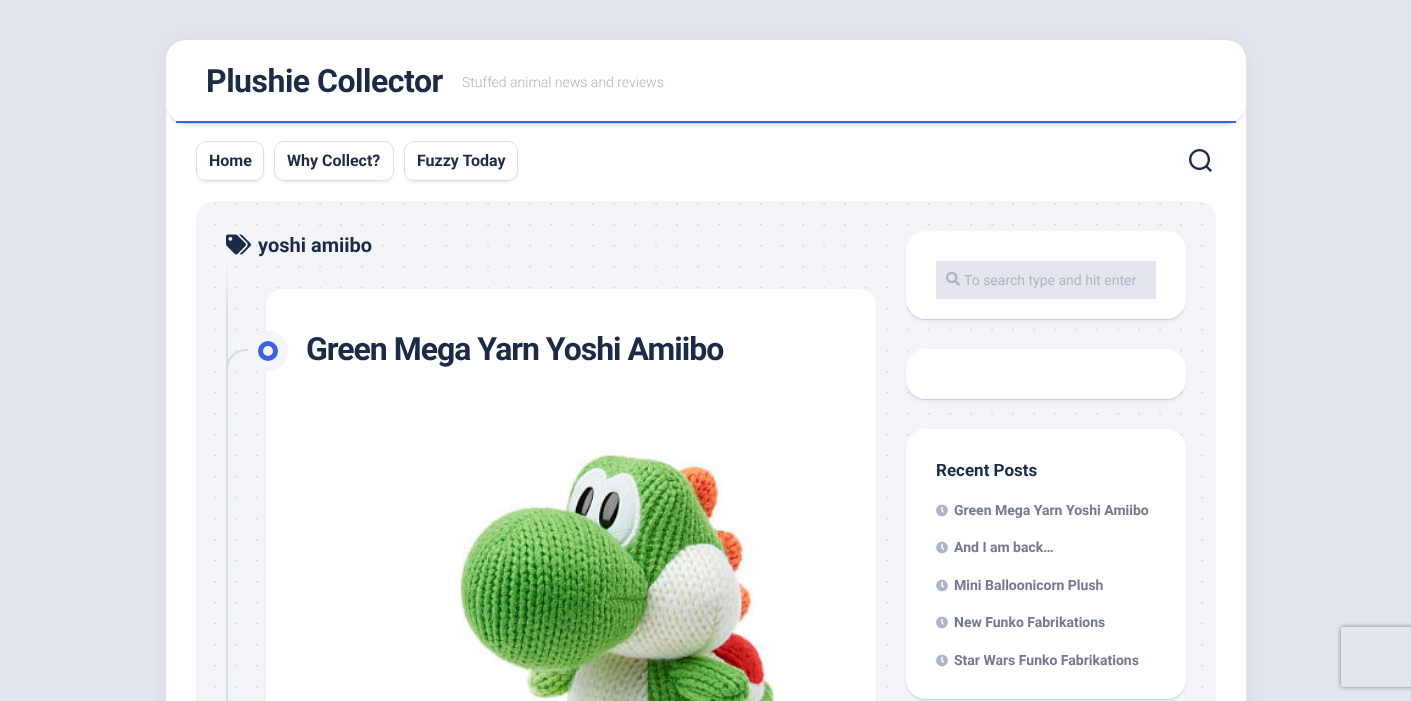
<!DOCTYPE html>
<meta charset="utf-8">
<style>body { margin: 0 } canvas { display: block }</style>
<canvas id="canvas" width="1411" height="701"></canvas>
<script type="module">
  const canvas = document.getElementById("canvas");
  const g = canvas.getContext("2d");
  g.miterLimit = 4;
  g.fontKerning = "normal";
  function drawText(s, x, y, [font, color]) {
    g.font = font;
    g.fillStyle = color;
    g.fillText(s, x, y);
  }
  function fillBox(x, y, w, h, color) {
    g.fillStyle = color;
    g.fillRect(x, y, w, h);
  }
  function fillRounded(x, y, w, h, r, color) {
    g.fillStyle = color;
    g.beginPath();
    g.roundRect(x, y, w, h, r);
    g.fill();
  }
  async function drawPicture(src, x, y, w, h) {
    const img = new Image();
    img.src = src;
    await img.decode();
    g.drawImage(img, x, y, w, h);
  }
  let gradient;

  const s1 = ["bold 32px Roboto", "#1B2B47"];
  const s2 = ["300 14px Roboto", "#AEB3C7"];
  const s3 = ["bold 16px Roboto", "#1B2B47"];
  const s4 = ["bold 20px Roboto", "#1B2B47"];
  const s5 = ["14px Roboto", "#AEB3C7"];
  const s6 = ["bold 17px Roboto", "#1B2B47"];
  const s7 = ["bold 14px Roboto", "#73798E"];

  fillBox(0, 0, 1411, 701, "#E4E6ED");
  g.fillStyle = "#D6DAE4";
  g.filter = "blur(10px)";
  g.beginPath();
  g.roundRect(166, 40, 1080, 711, 20);
  g.fill();
  g.filter = "none";
  fillRounded(166, 40, 1080, 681, 20, "#FFFFFF");
  g.save();
  g.beginPath();
  g.moveTo(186, 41);
  g.lineTo(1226, 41);
  g.bezierCurveTo(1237, 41, 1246, 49.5, 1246, 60);
  g.lineTo(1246, 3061);
  g.bezierCurveTo(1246, 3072, 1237, 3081, 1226, 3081);
  g.lineTo(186, 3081);
  g.bezierCurveTo(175, 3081, 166, 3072, 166, 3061);
  g.lineTo(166, 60);
  g.bezierCurveTo(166, 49.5, 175, 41, 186, 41);
  g.closePath();
  g.clip();
  g.beginPath();
  g.moveTo(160, 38);
  g.lineTo(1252, 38);
  g.lineTo(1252, 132);
  g.lineTo(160, 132);
  g.closePath();
  g.moveTo(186, 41);
  g.lineTo(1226, 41);
  g.bezierCurveTo(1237, 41, 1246, 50, 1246, 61);
  g.lineTo(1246, 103);
  g.bezierCurveTo(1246, 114, 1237, 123, 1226, 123);
  g.lineTo(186, 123);
  g.bezierCurveTo(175, 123, 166, 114, 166, 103);
  g.lineTo(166, 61);
  g.bezierCurveTo(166, 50, 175, 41, 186, 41);
  g.closePath();
  g.clip("evenodd");
  g.fillStyle = "rgba(193, 203, 230, 0.3)";
  g.filter = "blur(1.5px)";
  g.beginPath();
  g.roundRect(166, 44, 1080, 82, 20);
  g.fill();
  g.filter = "none";
  g.restore();
  g.fillStyle = "rgba(0, 0, 0, 0.1)";
  g.beginPath();
  g.moveTo(166, 103);
  g.bezierCurveTo(166, 114, 174, 124, 186, 124);
  g.lineTo(1226, 124);
  g.bezierCurveTo(1238, 124, 1246, 114, 1246, 103);
  g.bezierCurveTo(1246, 114, 1237, 123, 1226, 123);
  g.lineTo(186, 123);
  g.bezierCurveTo(175, 123, 166, 114, 166, 103);
  g.closePath();
  g.fill();
  fillRounded(166, 41, 1080, 82, 20, "rgba(255, 255, 255, 0.9)");
  fillBox(176, 121, 1060, 2, "#3B61EB");
  g.letterSpacing = "-0.5px";
  drawText("Plushie Collector", 206, 92, s1);
  g.letterSpacing = "0px";
  drawText("Stuffed animal news and reviews", 462, 87, s2);
  g.save();
  g.beginPath();
  g.moveTo(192, 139);
  g.lineTo(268, 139);
  g.lineTo(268, 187);
  g.lineTo(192, 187);
  g.closePath();
  g.moveTo(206, 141);
  g.lineTo(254, 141);
  g.bezierCurveTo(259.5, 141, 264, 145.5, 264, 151);
  g.lineTo(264, 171);
  g.bezierCurveTo(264, 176.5, 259.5, 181, 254, 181);
  g.lineTo(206, 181);
  g.bezierCurveTo(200.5, 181, 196, 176.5, 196, 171);
  g.lineTo(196, 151);
  g.bezierCurveTo(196, 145.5, 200.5, 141, 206, 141);
  g.closePath();
  g.clip("evenodd");
  g.fillStyle = "rgba(0, 0, 0, 0.06)";
  g.filter = "blur(1px)";
  g.beginPath();
  g.roundRect(196, 143, 68, 40, 10);
  g.fill();
  g.filter = "none";
  g.restore();
  g.beginPath();
  g.roundRect(196.5, 141.5, 67, 39, 9.5);
  g.strokeStyle = "#DCDFEA";
  g.stroke();
  drawText("Home", 209, 166, s3);
  g.save();
  g.beginPath();
  g.moveTo(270, 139);
  g.lineTo(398, 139);
  g.lineTo(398, 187);
  g.lineTo(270, 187);
  g.closePath();
  g.moveTo(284, 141);
  g.lineTo(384, 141);
  g.bezierCurveTo(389.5, 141, 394, 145.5, 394, 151);
  g.lineTo(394, 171);
  g.bezierCurveTo(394, 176.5, 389.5, 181, 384, 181);
  g.lineTo(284, 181);
  g.bezierCurveTo(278.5, 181, 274, 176.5, 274, 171);
  g.lineTo(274, 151);
  g.bezierCurveTo(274, 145.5, 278.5, 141, 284, 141);
  g.closePath();
  g.clip("evenodd");
  g.fillStyle = "rgba(0, 0, 0, 0.06)";
  g.filter = "blur(1px)";
  g.beginPath();
  g.roundRect(274, 143, 120, 40, 10);
  g.fill();
  g.filter = "none";
  g.restore();
  g.beginPath();
  g.roundRect(274.5, 141.5, 119, 39, 9.5);
  g.stroke();
  drawText("Why Collect?", 287, 166, s3);
  g.save();
  g.beginPath();
  g.moveTo(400, 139);
  g.lineTo(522, 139);
  g.lineTo(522, 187);
  g.lineTo(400, 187);
  g.closePath();
  g.moveTo(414, 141);
  g.lineTo(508, 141);
  g.bezierCurveTo(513.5, 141, 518, 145.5, 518, 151);
  g.lineTo(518, 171);
  g.bezierCurveTo(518, 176.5, 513.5, 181, 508, 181);
  g.lineTo(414, 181);
  g.bezierCurveTo(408.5, 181, 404, 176.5, 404, 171);
  g.lineTo(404, 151);
  g.bezierCurveTo(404, 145.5, 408.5, 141, 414, 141);
  g.closePath();
  g.clip("evenodd");
  g.fillStyle = "rgba(0, 0, 0, 0.06)";
  g.filter = "blur(1px)";
  g.beginPath();
  g.roundRect(404, 143, 114, 40, 10);
  g.fill();
  g.filter = "none";
  g.restore();
  g.beginPath();
  g.roundRect(404.5, 141.5, 113, 39, 9.5);
  g.stroke();
  drawText("Fuzzy Today", 417, 166, s3);
  await drawPicture("pic1.png", 1189, 149, 23, 23);
  fillRounded(196, 201, 1020, 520, 20, "#F4F5F8");
  await drawPicture("pic2.png", 214, 203, 990, 485);
  await drawPicture("pic3.png", 226, 234, 25, 21);
  drawText("yoshi amiibo", 258, 252, s4);
  fillBox(226, 319, 2, 382, "#D8DBE5");
  gradient = g.createLinearGradient(227, 319, 227, 259);
  gradient.addColorStop(0, "#D8DBE5");
  gradient.addColorStop(1, "#F4F5F8");
  g.fillStyle = gradient;
  g.fillRect(226, 259, 2, 60);
  g.fillStyle = "#D8DBE5";
  g.beginPath();
  g.moveTo(246, 349);
  g.lineTo(248, 349);
  g.lineTo(248, 371);
  g.lineTo(226, 371);
  g.lineTo(226, 369);
  g.bezierCurveTo(226, 358, 235, 349, 246, 349);
  g.closePath();
  g.moveTo(246, 351);
  g.lineTo(248, 351);
  g.lineTo(248, 371);
  g.lineTo(228, 371);
  g.lineTo(228, 369);
  g.bezierCurveTo(228, 359, 236, 351, 246, 351);
  g.closePath();
  g.fill("evenodd");
  g.fillStyle = "rgba(193, 203, 230, 0.3)";
  g.filter = "blur(1.5px)";
  g.beginPath();
  g.roundRect(266, 292, 610, 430, 16);
  g.fill();
  g.filter = "none";
  fillRounded(266, 289, 610, 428, 16, "#FFFFFF");
  g.fillStyle = "#3B61EB";
  g.beginPath();
  g.arc(268, 351, 15, 0, Math.PI * 2);
  g.fill();
  g.strokeStyle = "#F4F5F8";
  g.lineWidth = 10;
  g.stroke();
  g.fillStyle = "#F4F5F8";
  g.beginPath();
  g.arc(268, 351, 5, 0, Math.PI * 2);
  g.fill();
  g.letterSpacing = "-1px";
  drawText("Green Mega Yarn Yoshi Amiibo", 306, 360, s1);
  await drawPicture("pic4.png", 460, 449, 314, 252);
  g.fillStyle = "rgba(193, 203, 230, 0.3)";
  g.filter = "blur(1.5px)";
  g.beginPath();
  g.roundRect(906, 234, 280, 88, 20);
  g.fill();
  g.filter = "none";
  g.fillStyle = "rgba(0, 0, 0, 0.1)";
  g.beginPath();
  g.moveTo(906, 299);
  g.lineTo(906, 300);
  g.bezierCurveTo(906, 311, 915, 320, 926, 320);
  g.lineTo(1166, 320);
  g.bezierCurveTo(1177, 320, 1186, 311, 1186, 300);
  g.lineTo(1186, 299);
  g.bezierCurveTo(1186, 310, 1177, 319, 1166, 319);
  g.lineTo(926, 319);
  g.bezierCurveTo(915, 319, 906, 310, 906, 299);
  g.closePath();
  g.fill();
  fillRounded(906, 231, 280, 88, 20, "#FFFFFF");
  fillBox(936, 261, 220, 38, "#E4E6ED");
  await drawPicture("pic5.png", 946, 271, 14, 15);
  g.letterSpacing = "0px";
  drawText("To search type and hit enter", 964, 285, s5);
  g.fillStyle = "rgba(193, 203, 230, 0.3)";
  g.filter = "blur(1.5px)";
  g.beginPath();
  g.roundRect(906, 352, 280, 50, 20);
  g.fill();
  g.filter = "none";
  g.fillStyle = "rgba(0, 0, 0, 0.1)";
  g.beginPath();
  g.moveTo(906, 379);
  g.lineTo(906, 380);
  g.bezierCurveTo(906, 391, 915, 400, 926, 400);
  g.lineTo(1166, 400);
  g.bezierCurveTo(1177, 400, 1186, 391, 1186, 380);
  g.lineTo(1186, 379);
  g.bezierCurveTo(1186, 390, 1177, 399, 1166, 399);
  g.lineTo(926, 399);
  g.bezierCurveTo(915, 399, 906, 390, 906, 379);
  g.closePath();
  g.fill();
  fillRounded(906, 349, 280, 50, 20, "#FFFFFF");
  g.fillStyle = "rgba(193, 203, 230, 0.3)";
  g.filter = "blur(1.5px)";
  g.beginPath();
  g.roundRect(906, 432, 280, 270, 20);
  g.fill();
  g.filter = "none";
  g.fillStyle = "rgba(0, 0, 0, 0.1)";
  g.beginPath();
  g.moveTo(906, 679);
  g.lineTo(906, 680);
  g.bezierCurveTo(906, 691, 915, 700, 926, 700);
  g.lineTo(1166, 700);
  g.bezierCurveTo(1177, 700, 1186, 691, 1186, 680);
  g.lineTo(1186, 679);
  g.bezierCurveTo(1186, 690, 1177, 699, 1166, 699);
  g.lineTo(926, 699);
  g.bezierCurveTo(915, 699, 906, 690, 906, 679);
  g.closePath();
  g.fill();
  fillRounded(906, 429, 280, 270, 20, "#FFFFFF");
  drawText("Recent Posts", 936, 476, s6);
  await drawPicture("pic6.png", 936, 504, 12, 13);
  drawText("Green Mega Yarn Yoshi Amiibo", 954, 515, s7);
  await drawPicture("pic6.png", 936, 541, 12, 13);
  drawText("And I am back…", 954, 552, s7);
  await drawPicture("pic6.png", 936, 579, 12, 13);
  drawText("Mini Balloonicorn Plush", 954, 590, s7);
  await drawPicture("pic6.png", 936, 616, 12, 13);
  drawText("New Funko Fabrikations", 954, 627, s7);
  await drawPicture("pic6.png", 936, 654, 12, 13);
  drawText("Star Wars Funko Fabrikations", 954, 665, s7);
  g.save();
  g.beginPath();
  g.moveTo(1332, 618);
  g.lineTo(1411, 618);
  g.lineTo(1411, 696);
  g.lineTo(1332, 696);
  g.closePath();
  g.moveTo(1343, 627);
  g.lineTo(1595, 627);
  g.bezierCurveTo(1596, 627, 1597, 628, 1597, 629);
  g.lineTo(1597, 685);
  g.bezierCurveTo(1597, 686, 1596, 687, 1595, 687);
  g.lineTo(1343, 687);
  g.bezierCurveTo(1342, 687, 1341, 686, 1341, 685);
  g.lineTo(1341, 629);
  g.bezierCurveTo(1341, 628, 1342, 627, 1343, 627);
  g.closePath();
  g.clip("evenodd");
  g.fillStyle = "#808080";
  g.filter = "blur(2.5px)";
  g.beginPath();
  g.roundRect(1341, 627, 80, 60, 2);
  g.fill();
  g.filter = "none";
  g.restore();
</script>
